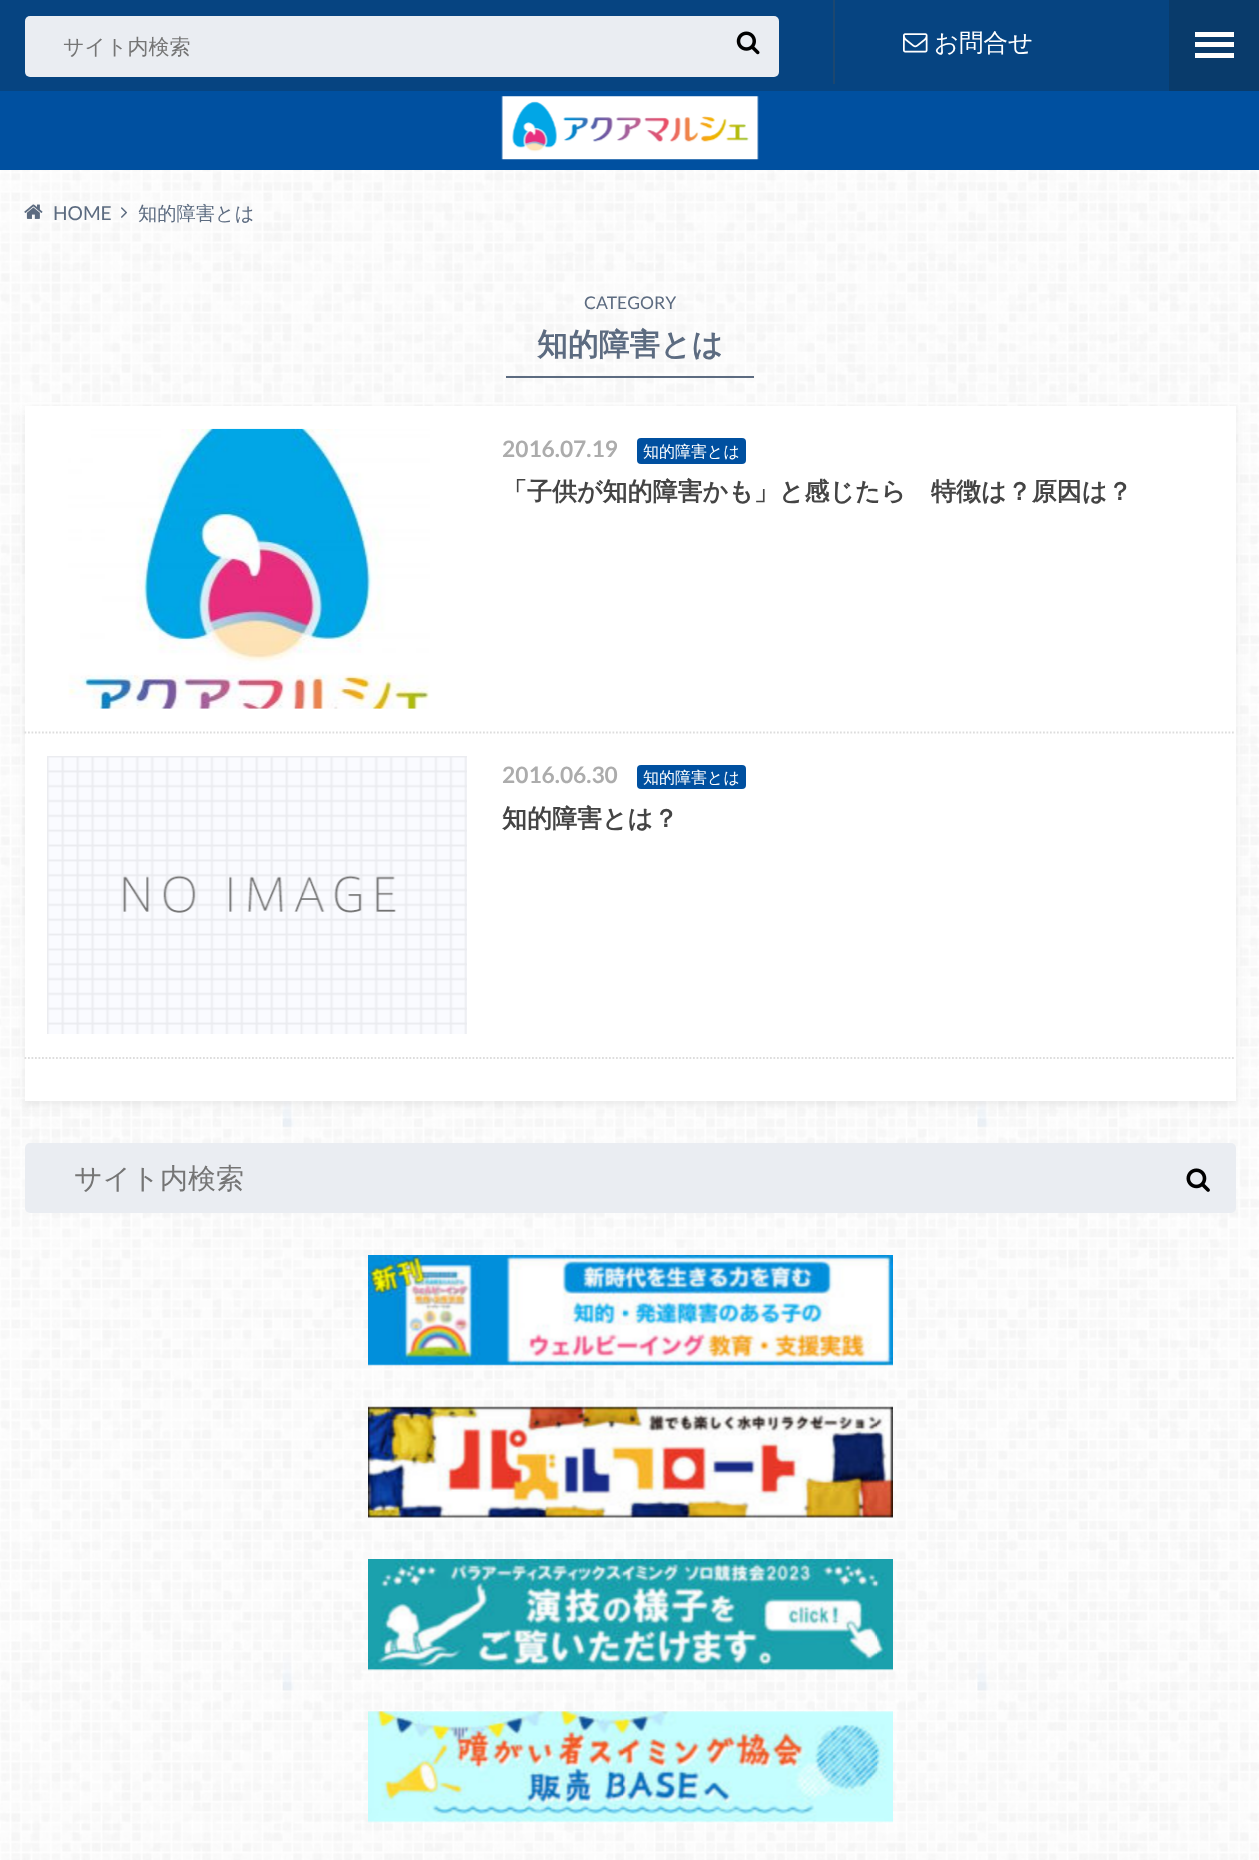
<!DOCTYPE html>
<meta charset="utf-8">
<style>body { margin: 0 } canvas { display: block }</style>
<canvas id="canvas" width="1259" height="1860"></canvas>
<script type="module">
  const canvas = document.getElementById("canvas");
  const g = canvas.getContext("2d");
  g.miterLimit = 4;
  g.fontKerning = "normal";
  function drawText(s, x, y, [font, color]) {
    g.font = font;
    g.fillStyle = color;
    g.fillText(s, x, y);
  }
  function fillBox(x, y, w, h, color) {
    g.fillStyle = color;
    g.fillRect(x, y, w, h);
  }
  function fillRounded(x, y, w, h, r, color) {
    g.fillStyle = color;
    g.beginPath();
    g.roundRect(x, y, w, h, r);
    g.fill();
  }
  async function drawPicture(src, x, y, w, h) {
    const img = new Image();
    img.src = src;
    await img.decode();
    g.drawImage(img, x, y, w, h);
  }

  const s1 = ["500 21px WenQuanYi Zen Hei", "#757575"];
  const s2 = ["500 24.5px WenQuanYi Zen Hei", "#FFFFFF"];
  const s3 = ["19.25px Lato", "#5C6B80"];
  const s4 = ["500 19.25px WenQuanYi Zen Hei", "#5C6B80"];
  const s5 = ["17.5px Lato", "#5C6B80"];
  const s6 = ["bold 30.75px WenQuanYi Zen Hei", "#5C6B80"];
  const s7 = ["bold 22.75px Lato", "#ACACAC"];
  const s8 = ["500 16px WenQuanYi Zen Hei", "#FFFFFF"];
  const s9 = ["bold 25px WenQuanYi Zen Hei", "#444444"];
  const s10 = ["500 28px WenQuanYi Zen Hei", "#757575"];

  fillBox(0, 0, 1259, 1860, "#FFFFFF");
  await drawPicture("pic1.png", 0, 170, 1259, 1690);
  fillBox(0, 0, 1169, 91, "#064481");
  fillBox(1169, 0, 90, 91, "#093B6B");
  fillBox(1195, 32, 39, 5, "#FFFFFF");
  fillBox(1195, 42, 39, 5, "#FFFFFF");
  fillBox(1195, 53, 39, 5, "#FFFFFF");
  fillBox(0, 91, 1259, 79, "#0050A0");
  fillRounded(25, 16, 754, 61, 5, "#EAEDF2");
  drawText("サイト内検索", 63, 54, s1);
  await drawPicture("pic2.png", 736, 31, 24, 24);
  fillBox(833, 0, 2, 84, "#1C4770");
  await drawPicture("pic3.png", 903, 33, 25, 20);
  drawText("お問合せ", 934, 51, s2);
  await drawPicture("pic4.png", 501, 96, 258, 64);
  await drawPicture("pic5.png", 24, 204, 19, 15);
  drawText("HOME", 53, 220, s3);
  await drawPicture("pic6.png", 121, 207, 7, 11);
  drawText("知的障害とは", 138, 220, s4);
  fillBox(506, 376, 248, 2, "#5C6B80");
  drawText("CATEGORY", 584, 309, s5);
  drawText("知的障害とは", 537, 355, s6);
  g.fillStyle = "rgba(138, 138, 138, 0.15)";
  g.filter = "blur(4.5px)";
  g.beginPath();
  g.rect(25, 410, 1211, 694);
  g.fill();
  g.filter = "none";
  fillBox(25, 406, 1211, 695, "#FFFFFF");
  g.beginPath();
  g.moveTo(24.5, 732.5);
  g.lineTo(1235.5, 732.5);
  g.strokeStyle = "#DDDDDD";
  g.lineWidth = 1.8;
  g.setLineDash([1.75, 1.75]);
  g.stroke();
  await drawPicture("pic7.png", 68, 428, 362, 281);
  drawText("2016.07.19", 502, 457, s7);
  fillRounded(637, 438, 109, 26, 4, "#0050A0");
  drawText("知的障害とは", 643, 457, s8);
  drawText("「子供が知的障害かも」と感じたら　特徴は？原因は？", 502, 500, s9);
  g.beginPath();
  g.moveTo(24.5, 1058);
  g.lineTo(1235.5, 1058);
  g.stroke();
  await drawPicture("pic8.png", 47, 756, 420, 278);
  drawText("2016.06.30", 502, 783, s7);
  fillRounded(637, 765, 109, 24, 4, "#0050A0");
  drawText("知的障害とは", 643, 783, s8);
  drawText("知的障害とは？", 502, 827, s9);
  fillRounded(25, 1143, 1211, 70, 5, "#EAEDF2");
  drawText("サイト内検索", 74, 1188, s10);
  await drawPicture("pic9.png", 1186, 1168, 24, 24);
  await drawPicture("pic10.png", 368, 1255, 525, 111);
  await drawPicture("pic11.png", 368, 1406, 525, 112);
  await drawPicture("pic12.png", 368, 1559, 525, 112);
  await drawPicture("pic13.png", 368, 1711, 525, 112);
</script>
